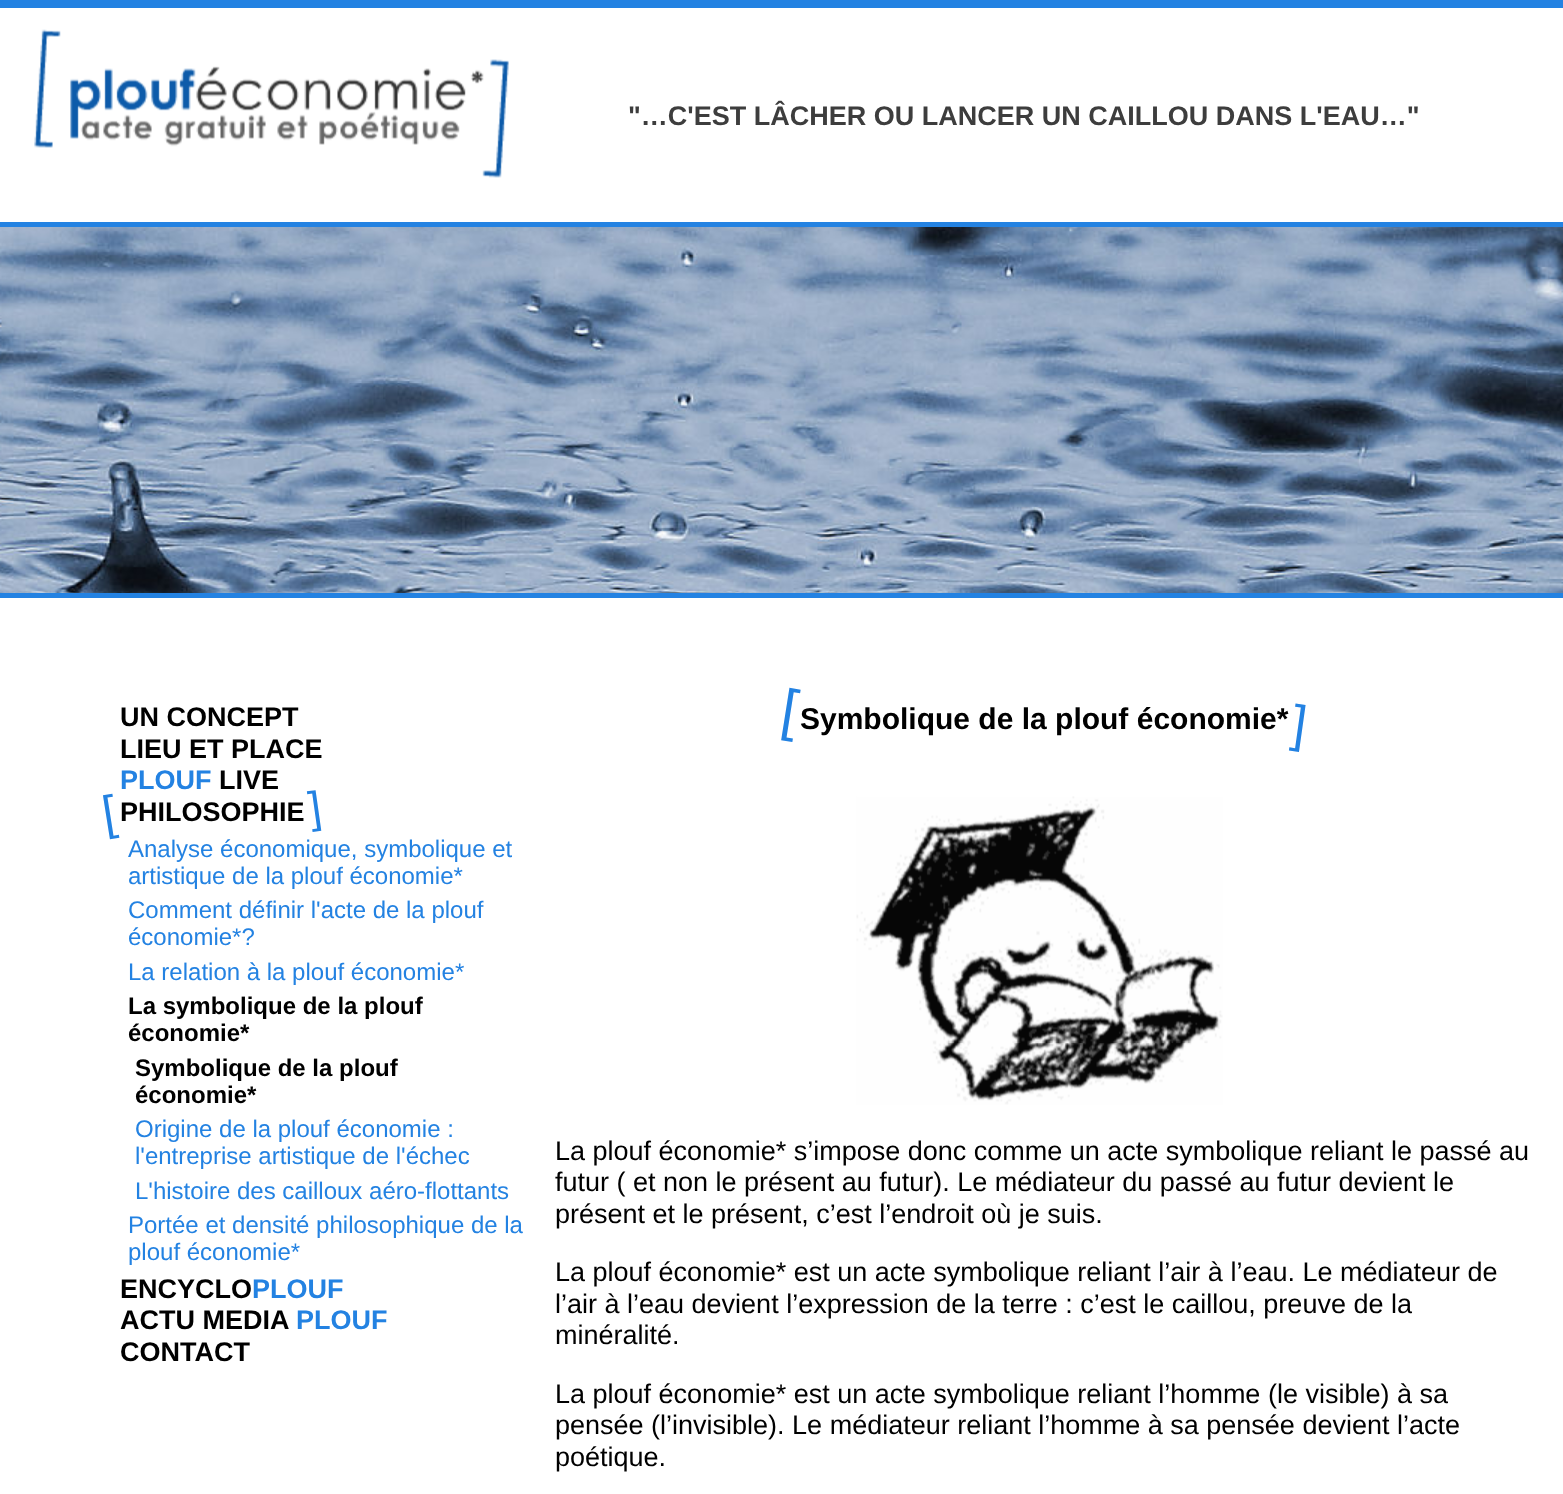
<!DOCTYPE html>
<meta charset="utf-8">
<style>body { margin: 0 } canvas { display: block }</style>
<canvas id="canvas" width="1563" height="1494"></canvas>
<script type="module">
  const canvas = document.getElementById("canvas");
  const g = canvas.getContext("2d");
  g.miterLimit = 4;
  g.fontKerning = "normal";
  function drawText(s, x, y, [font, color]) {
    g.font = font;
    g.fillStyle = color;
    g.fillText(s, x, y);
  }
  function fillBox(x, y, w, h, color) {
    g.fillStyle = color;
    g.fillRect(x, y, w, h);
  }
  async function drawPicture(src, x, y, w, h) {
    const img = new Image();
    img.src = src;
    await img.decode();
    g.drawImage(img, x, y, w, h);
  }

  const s1 = ["bold 27px Liberation Sans", "#3D3D3D"];
  const s2 = ["bold 27px Liberation Sans", "#000000"];
  const s3 = ["bold 27px Liberation Sans", "#2382E2"];
  const s4 = ["24px Liberation Sans", "#2382E2"];
  const s5 = ["bold 24px Liberation Sans", "#000000"];
  const s6 = ["bold 30px Liberation Sans", "#000000"];
  const s7 = ["27px Liberation Sans", "#000000"];

  fillBox(0, 0, 1563, 1494, "#FFFFFF");
  fillBox(0, 0, 1563, 8, "#2382E2");
  await drawPicture("pic1.png", 34, 29, 475, 149);
  drawText("\"…C'EST LÂCHER OU LANCER UN CAILLOU DANS L'EAU…\"", 628, 125, s1);
  await drawPicture("pic2.png", 0, 227, 1563, 366);
  fillBox(0, 222, 1563, 5, "#2382E2");
  fillBox(0, 593, 1563, 5, "#2382E2");
  drawText("UN CONCEPT", 120, 726, s2);
  drawText("LIEU ET PLACE", 120, 758, s2);
  drawText("PLOUF", 120, 789, s3);
  drawText("LIVE", 219, 789, s2);
  g.font = "48px Liberation Sans";
  g.fillStyle = "#2382E2";
  g.save();
  g.translate(105, 830);
  g.rotate(-9 * Math.PI / 180);
  g.fillText("[", 0, 0);
  g.restore();
  drawText("PHILOSOPHIE", 120, 821, s2);
  g.font = "44px Liberation Sans";
  g.fillStyle = "#2382E2";
  g.save();
  g.translate(311, 823);
  g.rotate(-8 * Math.PI / 180);
  g.fillText("]", 0, 0);
  g.restore();
  drawText("Analyse économique, symbolique et", 128, 857, s4);
  drawText("artistique de la plouf économie*", 128, 884, s4);
  drawText("Comment définir l'acte de la plouf", 128, 918, s4);
  drawText("économie*?", 128, 945, s4);
  drawText("La relation à la plouf économie*", 128, 980, s4);
  drawText("La symbolique de la plouf", 128, 1014, s5);
  drawText("économie*", 128, 1041, s5);
  drawText("Symbolique de la plouf", 135, 1076, s5);
  drawText("économie*", 135, 1103, s5);
  drawText("Origine de la plouf économie :", 135, 1137, s4);
  drawText("l'entreprise artistique de l'échec", 135, 1164, s4);
  drawText("L'histoire des cailloux aéro-flottants", 135, 1199, s4);
  drawText("Portée et densité philosophique de la", 128, 1233, s4);
  drawText("plouf économie*", 128, 1260, s4);
  drawText("ENCYCLO", 120, 1298, s2);
  drawText("PLOUF", 252, 1298, s3);
  drawText("ACTU MEDIA", 120, 1329, s2);
  drawText("PLOUF", 296, 1329, s3);
  drawText("CONTACT", 120, 1361, s2);
  drawText("Symbolique de la plouf économie*", 800, 729, s6);
  g.font = "57px Liberation Sans";
  g.fillStyle = "#2382E2";
  g.save();
  g.translate(779, 728);
  g.rotate(9 * Math.PI / 180);
  g.fillText("[", 0, 0);
  g.restore();
  g.font = "51px Liberation Sans";
  g.save();
  g.translate(1290, 740);
  g.rotate(8 * Math.PI / 180);
  g.fillText("]", 0, 0);
  g.restore();
  await drawPicture("pic3.png", 856, 796, 367, 309);
  drawText("La plouf économie* s’impose donc comme un acte symbolique reliant le passé au", 555, 1160, s7);
  drawText("futur ( et non le présent au futur). Le médiateur du passé au futur devient le", 555, 1191, s7);
  drawText("présent et le présent, c’est l’endroit où je suis.", 555, 1223, s7);
  drawText("La plouf économie* est un acte symbolique reliant l’air à l’eau. Le médiateur de", 555, 1281, s7);
  drawText("l’air à l’eau devient l’expression de la terre : c’est le caillou, preuve de la", 555, 1313, s7);
  drawText("minéralité.", 555, 1344, s7);
  drawText("La plouf économie* est un acte symbolique reliant l’homme (le visible) à sa", 555, 1403, s7);
  drawText("pensée (l’invisible). Le médiateur reliant l’homme à sa pensée devient l’acte", 555, 1434, s7);
  drawText("poétique.", 555, 1466, s7);
</script>
